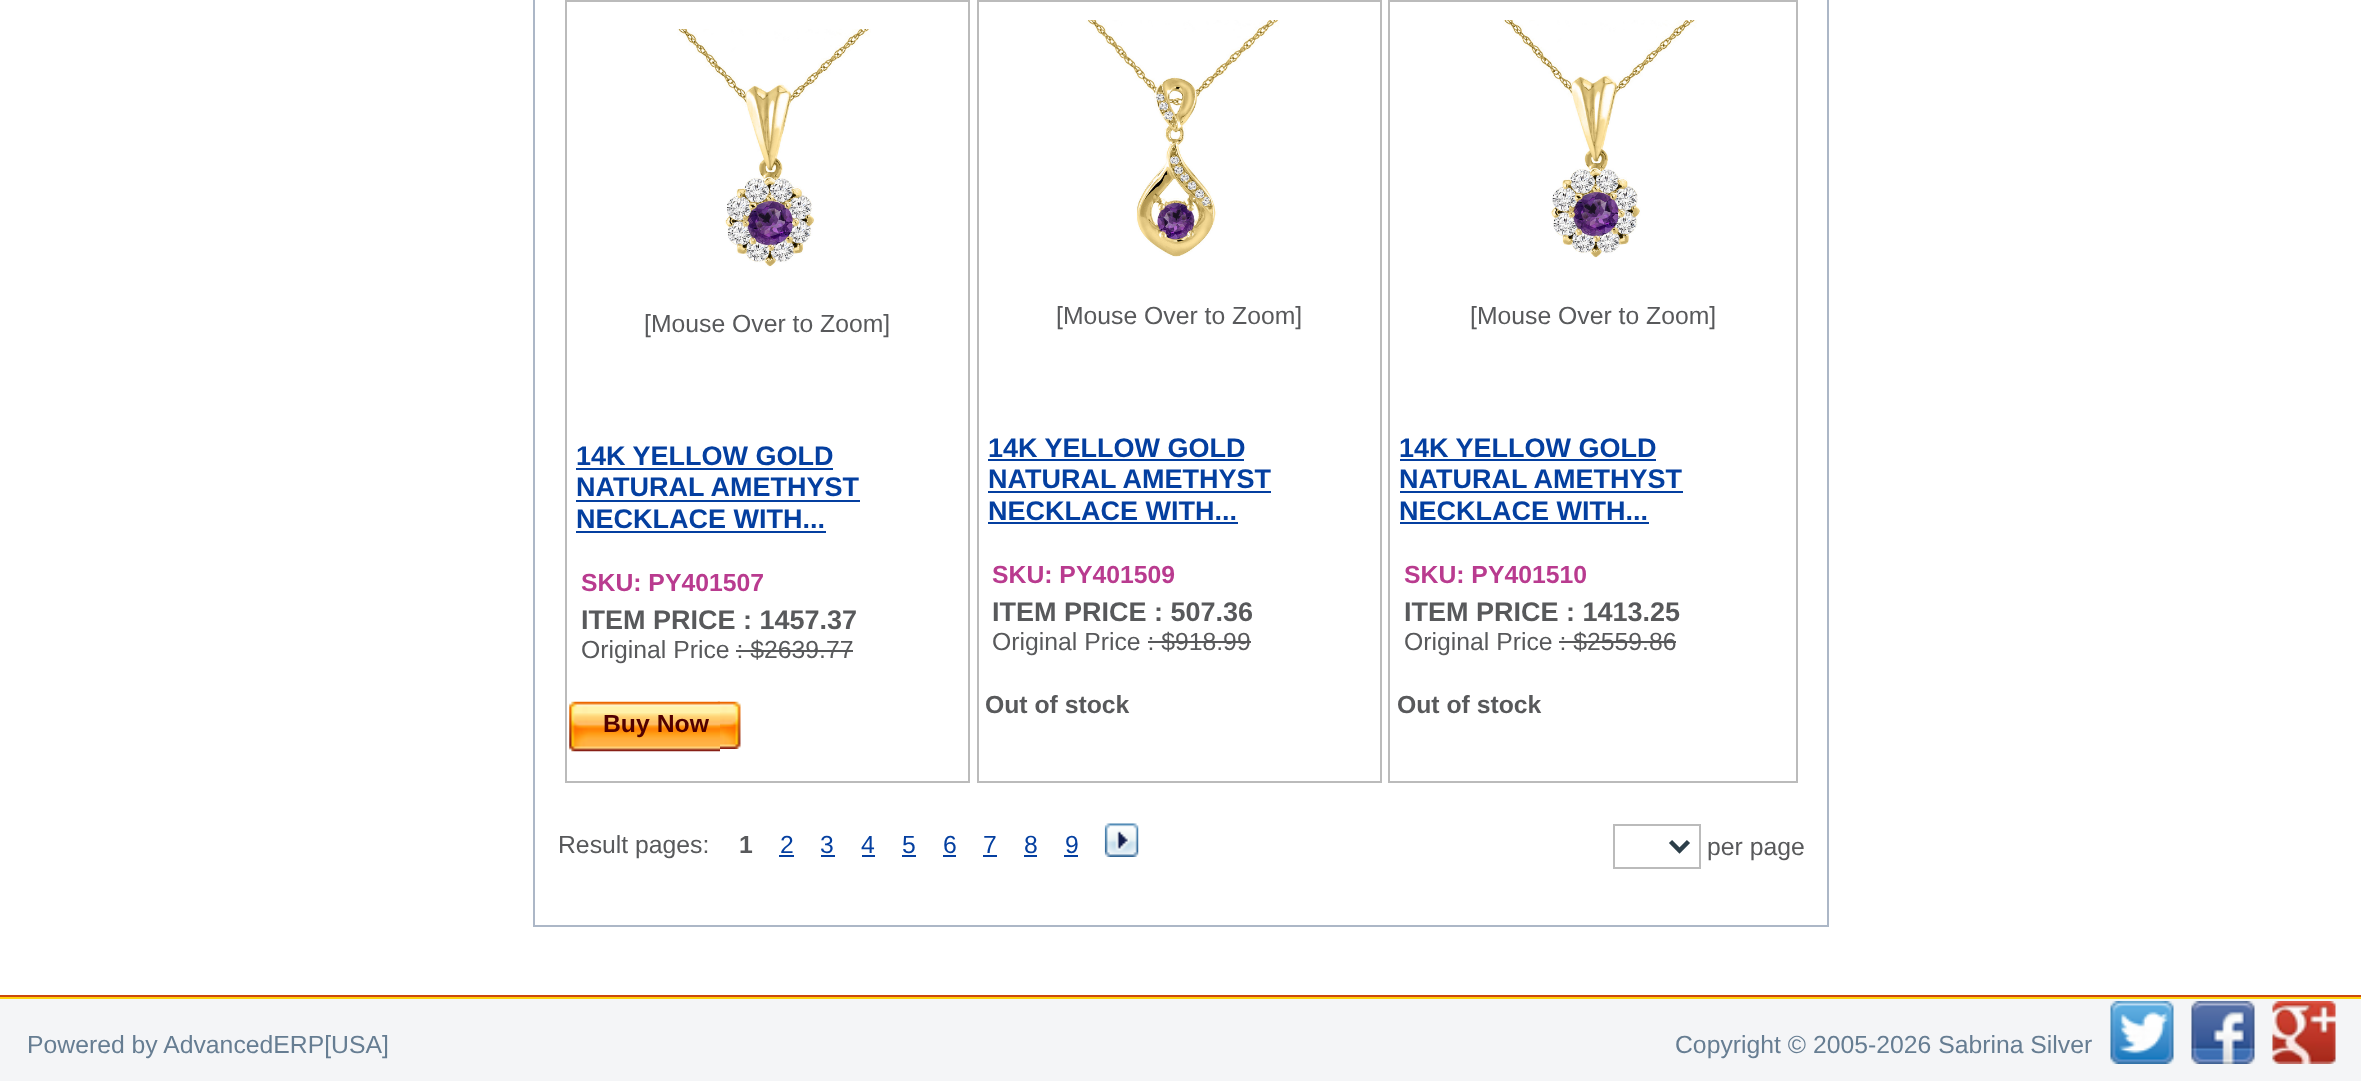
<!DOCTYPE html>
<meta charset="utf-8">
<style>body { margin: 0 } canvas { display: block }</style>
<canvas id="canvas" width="2361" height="1081"></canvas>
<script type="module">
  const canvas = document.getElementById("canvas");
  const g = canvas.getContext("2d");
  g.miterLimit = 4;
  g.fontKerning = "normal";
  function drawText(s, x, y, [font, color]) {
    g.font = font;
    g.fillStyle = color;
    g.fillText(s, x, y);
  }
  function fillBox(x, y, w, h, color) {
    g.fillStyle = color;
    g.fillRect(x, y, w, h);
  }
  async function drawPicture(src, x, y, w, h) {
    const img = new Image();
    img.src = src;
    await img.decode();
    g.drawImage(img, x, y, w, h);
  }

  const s1 = ["24.75px Liberation Sans", "#58595B"];
  const s2 = ["bold 27px Liberation Sans", "#043FA0"];
  const s3 = ["bold 24.75px Liberation Sans", "#B93B8F"];
  const s4 = ["bold 27px Liberation Sans", "#58595B"];
  const s5 = ["bold 24.75px Liberation Sans", "#510000"];
  const s6 = ["bold 24.75px Liberation Sans", "#58595B"];
  const s7 = ["24.75px Liberation Sans", "#043FA0"];
  const s8 = ["24.75px Liberation Sans", "#667D92"];

  fillBox(0, 0, 2361, 1081, "#FFFFFF");
  g.strokeStyle = "#ACB7C7";
  g.lineWidth = 2;
  g.strokeRect(534, -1, 1294, 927);
  g.strokeStyle = "#BBBBBB";
  g.strokeRect(566, 1, 403, 781);
  await drawPicture("pic1.png", 677, 29, 194, 238);
  drawText("[Mouse Over to Zoom]", 644, 332, s1);
  drawText("14K YELLOW GOLD", 576, 465, s2);
  fillBox(576, 468, 257, 2, "#043FA0");
  drawText("NATURAL AMETHYST", 576, 496, s2);
  fillBox(576, 500, 284, 2, "#043FA0");
  drawText("NECKLACE WITH...", 576, 528, s2);
  fillBox(576, 531, 250, 2, "#043FA0");
  drawText("SKU: PY401507", 581, 591, s3);
  drawText("ITEM PRICE : 1457.37", 581, 629, s4);
  drawText("Original Price : $2639.77", 581, 658, s1);
  fillBox(736, 650, 117, 2, "#58595B");
  await drawPicture("pic2.png", 717, 701, 24, 48);
  await drawPicture("pic3.png", 569, 701, 151, 51);
  drawText("Buy Now", 603, 732, s5);
  g.strokeRect(978, 1, 403, 781);
  await drawPicture("pic4.png", 1086, 20, 194, 237);
  drawText("[Mouse Over to Zoom]", 1056, 324, s1);
  drawText("14K YELLOW GOLD", 988, 457, s2);
  fillBox(988, 459, 256, 2, "#043FA0");
  drawText("NATURAL AMETHYST", 988, 488, s2);
  fillBox(988, 491, 283, 2, "#043FA0");
  drawText("NECKLACE WITH...", 988, 520, s2);
  fillBox(988, 522, 250, 2, "#043FA0");
  drawText("SKU: PY401509", 992, 583, s3);
  drawText("ITEM PRICE : 507.36", 992, 621, s4);
  drawText("Original Price : $918.99", 992, 650, s1);
  fillBox(1148, 641, 103, 2, "#58595B");
  drawText("Out of stock", 985, 713, s6);
  g.strokeRect(1389, 1, 408, 781);
  await drawPicture("pic5.png", 1503, 20, 194, 238);
  drawText("[Mouse Over to Zoom]", 1470, 324, s1);
  drawText("14K YELLOW GOLD", 1399, 457, s2);
  fillBox(1400, 459, 256, 2, "#043FA0");
  drawText("NATURAL AMETHYST", 1399, 488, s2);
  fillBox(1400, 491, 283, 2, "#043FA0");
  drawText("NECKLACE WITH...", 1399, 520, s2);
  fillBox(1400, 522, 249, 2, "#043FA0");
  drawText("SKU: PY401510", 1404, 583, s3);
  drawText("ITEM PRICE : 1413.25", 1404, 621, s4);
  drawText("Original Price : $2559.86", 1404, 650, s1);
  fillBox(1559, 641, 117, 2, "#58595B");
  drawText("Out of stock", 1397, 713, s6);
  drawText("Result pages:", 558, 853, s1);
  drawText("1", 739, 853, s6);
  drawText("2", 780, 853, s7);
  fillBox(779, 855, 15, 2, "#043FA0");
  drawText("3", 820, 853, s7);
  fillBox(821, 855, 14, 2, "#043FA0");
  drawText("4", 861, 853, s7);
  fillBox(862, 855, 13, 2, "#043FA0");
  drawText("5", 902, 853, s7);
  fillBox(902, 855, 14, 2, "#043FA0");
  drawText("6", 943, 853, s7);
  fillBox(943, 855, 13, 2, "#043FA0");
  drawText("7", 983, 853, s7);
  fillBox(983, 855, 14, 2, "#043FA0");
  drawText("8", 1024, 853, s7);
  fillBox(1024, 855, 13, 2, "#043FA0");
  drawText("9", 1065, 853, s7);
  fillBox(1064, 855, 14, 2, "#043FA0");
  await drawPicture("pic6.png", 1104, 823, 35, 34);
  g.strokeRect(1614, 825, 86, 43);
  g.beginPath();
  g.moveTo(1670.5, 841.5);
  g.lineTo(1679.5, 850.5);
  g.lineTo(1688.5, 841.5);
  g.strokeStyle = "#2C3E49";
  g.lineWidth = 4.5;
  g.stroke();
  drawText("per page", 1707, 855, s1);
  fillBox(0, 995, 2361, 2, "#CB480C");
  fillBox(0, 999, 2361, 82, "#F4F5F7");
  fillBox(0, 997, 2361, 2, "#FFD30D");
  drawText("Powered by AdvancedERP[USA]", 27, 1053, s8);
  drawText("Copyright © 2005-2026 Sabrina Silver", 1675, 1053, s8);
  await drawPicture("pic7.png", 2110, 1001, 64, 63);
  await drawPicture("pic8.png", 2191, 1001, 64, 63);
  await drawPicture("pic9.png", 2272, 1001, 64, 63);
</script>
